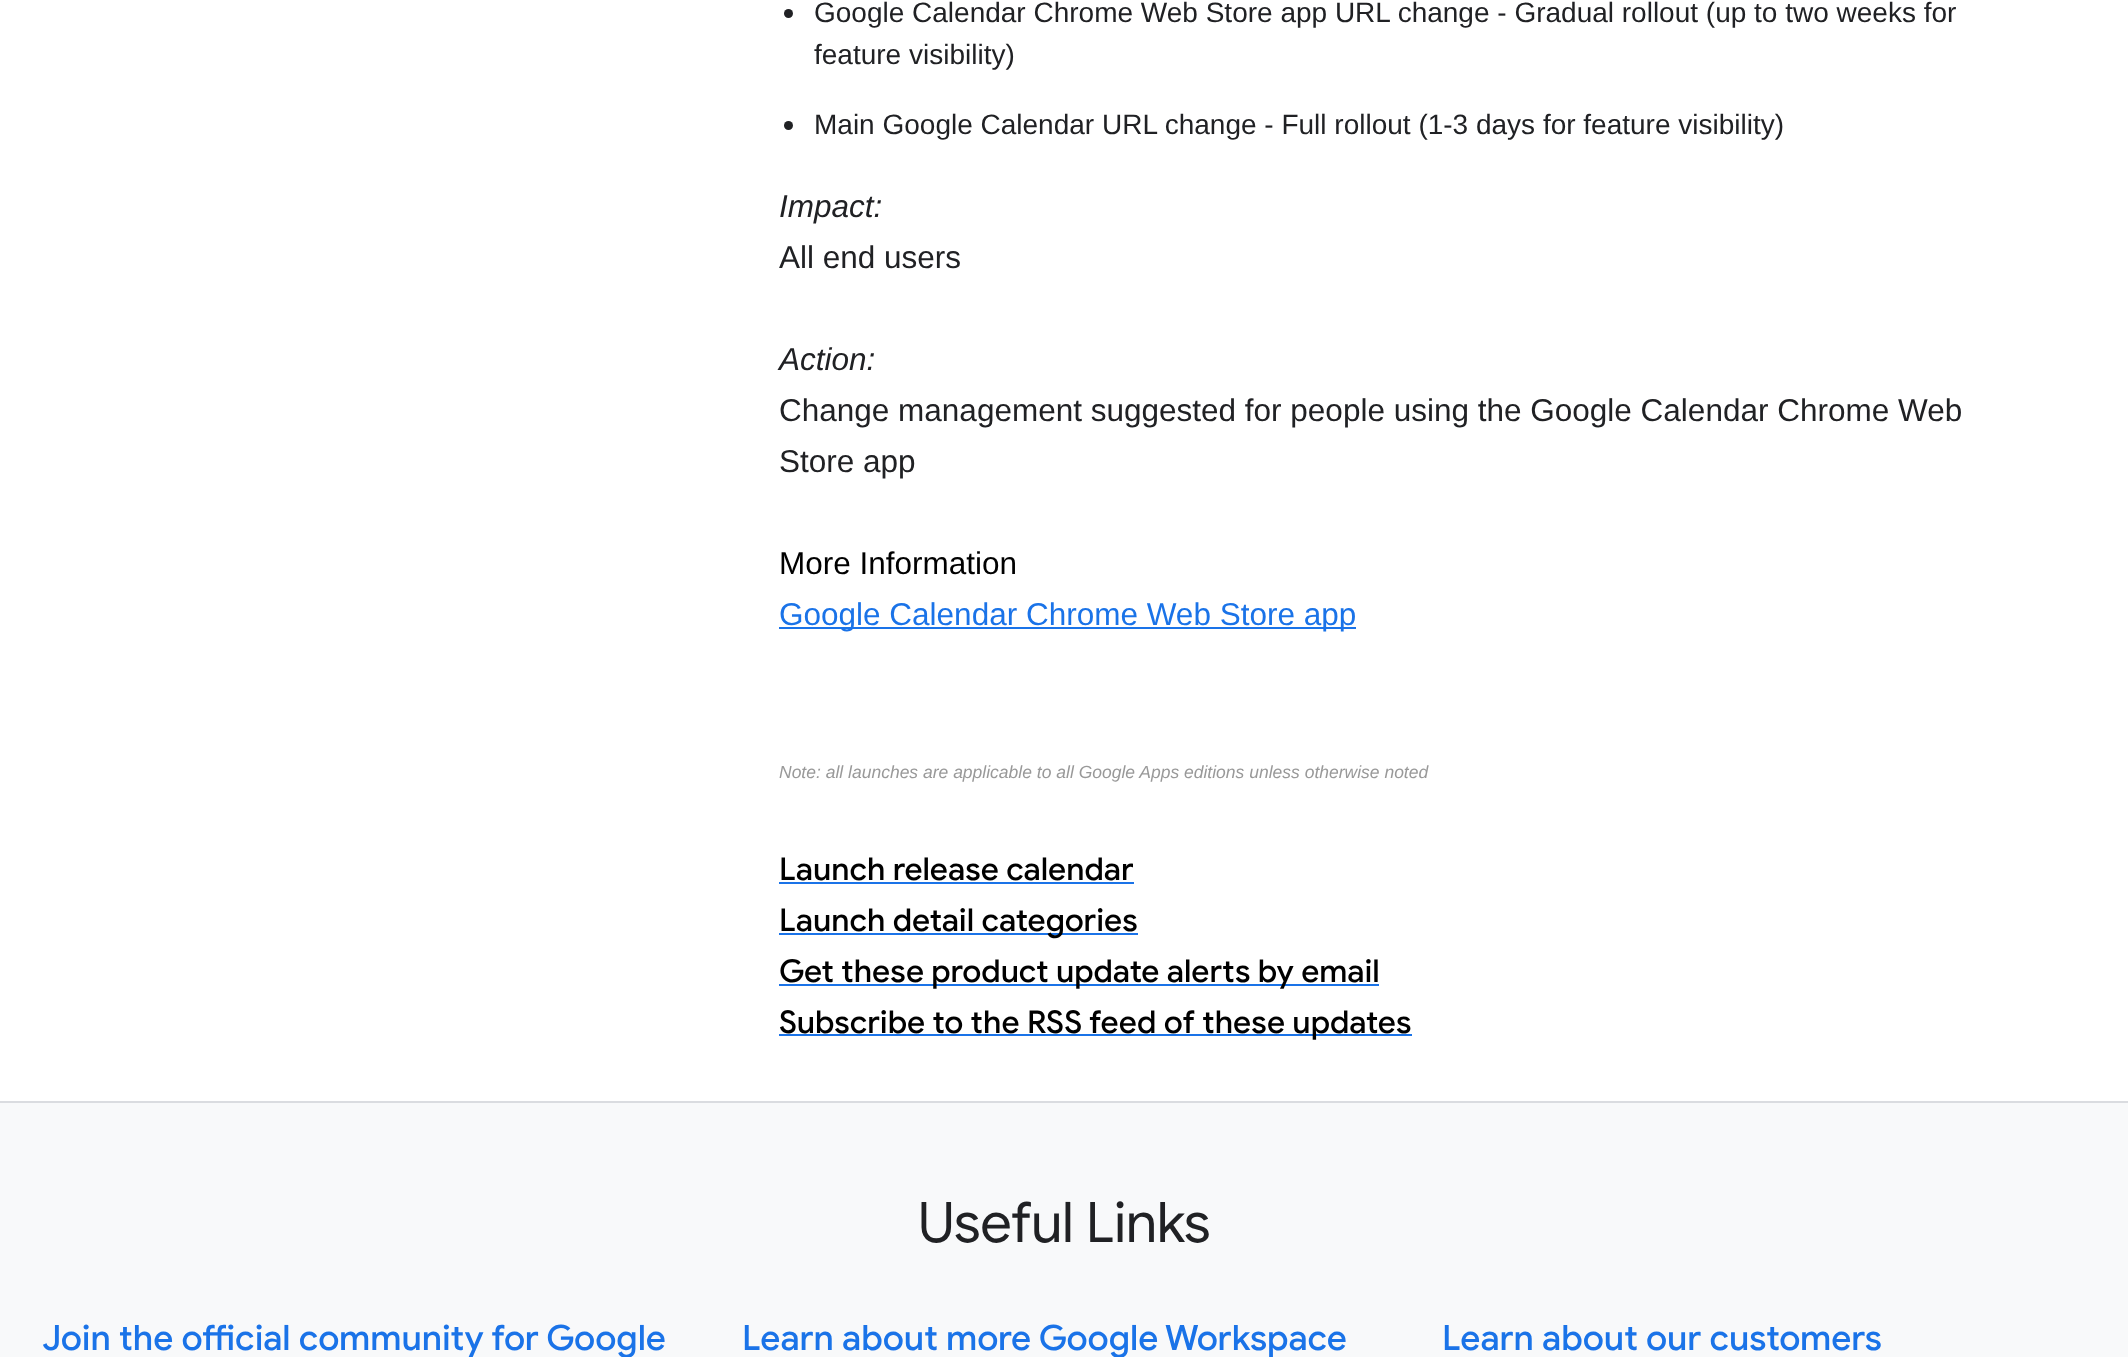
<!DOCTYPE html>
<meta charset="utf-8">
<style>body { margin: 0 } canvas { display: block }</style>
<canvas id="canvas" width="2128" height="1357"></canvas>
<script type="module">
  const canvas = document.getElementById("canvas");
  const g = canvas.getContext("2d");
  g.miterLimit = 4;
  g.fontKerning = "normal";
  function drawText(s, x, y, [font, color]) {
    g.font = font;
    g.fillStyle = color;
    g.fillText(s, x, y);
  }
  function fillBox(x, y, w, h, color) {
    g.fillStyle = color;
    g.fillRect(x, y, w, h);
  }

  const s1 = ["28px Liberation Sans", "#202124"];
  const s2 = ["italic 31.5px Liberation Sans", "#202124"];
  const s3 = ["31.5px Liberation Sans", "#202124"];
  const s4 = ["31.5px Liberation Sans", "#000000"];
  const s5 = ["31.5px Liberation Sans", "#1A73E8"];
  const s6 = ["italic 17.5px Liberation Sans", "#999999"];
  const s7 = ["500 31.5px Google Sans", "#000000"];
  const s8 = ["56px Google Sans", "#202124"];
  const s9 = ["500 35px Google Sans", "#1A73E8"];

  fillBox(0, 0, 2128, 1357, "#FFFFFF");
  g.fillStyle = "#202124";
  g.beginPath();
  g.arc(788.5, 13.5, 4.5, 0, Math.PI * 2);
  g.fill();
  drawText("Google Calendar Chrome Web Store app URL change - Gradual rollout (up to two weeks for", 814, 22, s1);
  drawText("feature visibility)", 814, 64, s1);
  g.beginPath();
  g.arc(788.5, 125.5, 4.5, 0, Math.PI * 2);
  g.fill();
  drawText("Main Google Calendar URL change - Full rollout (1-3 days for feature visibility)", 814, 134, s1);
  drawText("Impact:", 779, 217, s2);
  drawText("All end users", 779, 268, s3);
  drawText("Action:", 779, 370, s2);
  drawText("Change management suggested for people using the Google Calendar Chrome Web", 779, 421, s3);
  drawText("Store app", 779, 472, s3);
  drawText("More Information", 779, 574, s4);
  fillBox(779, 627, 577, 2, "#1A73E8");
  drawText("Google Calendar Chrome Web Store app", 779, 625, s5);
  drawText("Note: all launches are applicable to all Google Apps editions unless otherwise noted", 779, 778, s6);
  drawText("Launch release calendar", 779, 880, s7);
  fillBox(779, 882, 355, 2, "#1A73E8");
  fillBox(779, 933, 359, 2, "#1A73E8");
  drawText("Launch detail categories", 779, 931, s7);
  fillBox(779, 984, 600, 2, "#1A73E8");
  drawText("Get these product update alerts by email", 779, 982, s7);
  fillBox(779, 1034, 633, 2, "#1A73E8");
  drawText("Subscribe to the RSS feed of these updates", 779, 1033, s7);
  fillBox(0, 1103, 2128, 254, "#F8F9FA");
  fillBox(0, 1101, 2128, 2, "#DADCE0");
  g.letterSpacing = "-0.5px";
  drawText("Useful Links", 918, 1242, s8);
  g.letterSpacing = "0px";
  drawText("Join the official community for Google", 42, 1350, s9);
  drawText("Learn about more Google Workspace", 742, 1350, s9);
  drawText("Learn about our customers", 1442, 1350, s9);
</script>
